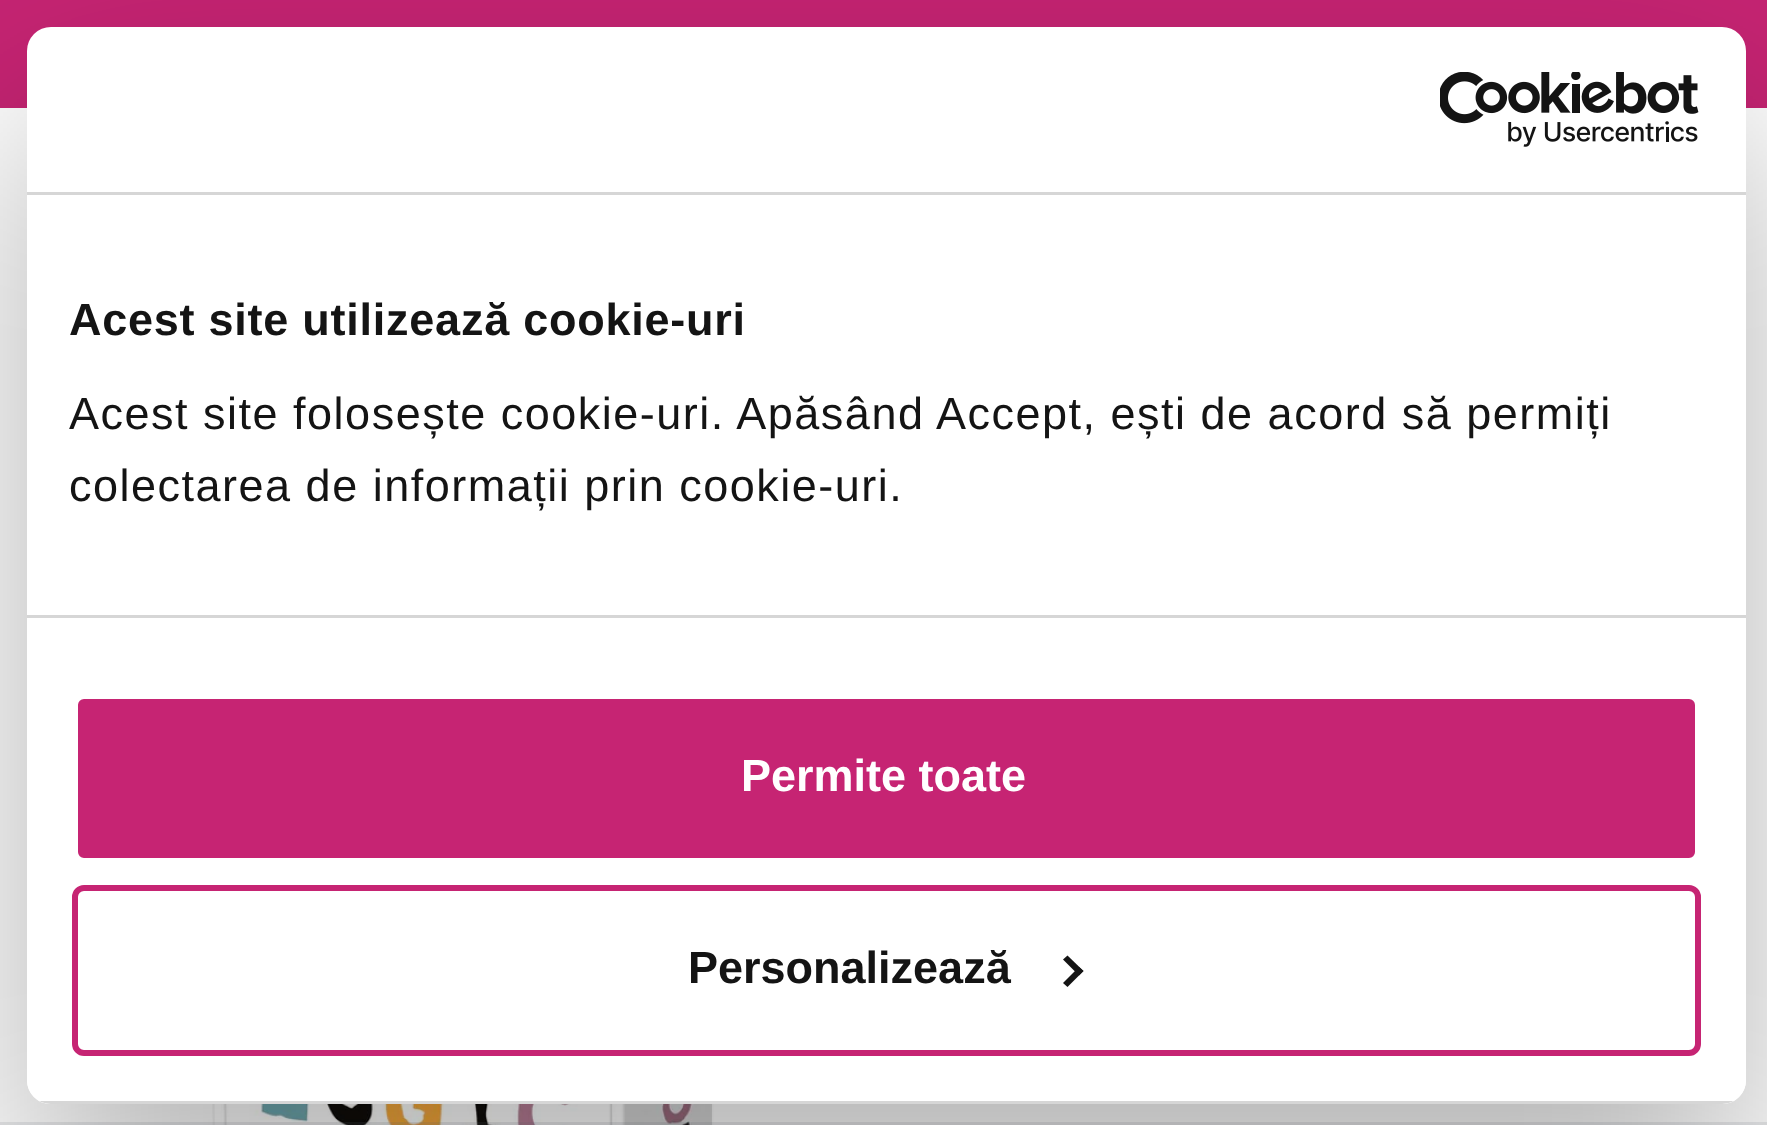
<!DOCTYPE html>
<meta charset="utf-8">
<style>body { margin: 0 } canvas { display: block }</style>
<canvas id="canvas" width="1767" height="1125"></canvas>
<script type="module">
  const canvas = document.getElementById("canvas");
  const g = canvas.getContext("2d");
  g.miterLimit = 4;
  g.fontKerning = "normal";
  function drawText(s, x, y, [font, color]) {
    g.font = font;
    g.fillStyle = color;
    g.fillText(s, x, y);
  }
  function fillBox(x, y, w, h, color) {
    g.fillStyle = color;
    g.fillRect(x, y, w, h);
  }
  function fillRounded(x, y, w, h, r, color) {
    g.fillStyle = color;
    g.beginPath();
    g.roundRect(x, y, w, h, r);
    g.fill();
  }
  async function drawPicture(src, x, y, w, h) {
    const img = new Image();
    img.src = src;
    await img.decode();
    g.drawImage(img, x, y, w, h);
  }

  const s1 = ["bold 45px Liberation Sans", "#141414"];
  const s2 = ["45px Liberation Sans", "#141414"];
  const s3 = ["bold 45px Liberation Sans", "#FFFFFF"];

  fillBox(0, 0, 1767, 1125, "#FFFFFF");
  fillBox(0, 0, 1767, 108, "#C62473");
  await drawPicture("pic2.png", 208, 1104, 506, 21);
  fillBox(0, 1122, 1767, 3, "rgba(114, 118, 133, 0.15)");
  g.save();
  g.beginPath();
  g.moveTo(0, 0);
  g.lineTo(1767, 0);
  g.lineTo(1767, 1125);
  g.lineTo(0, 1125);
  g.closePath();
  g.moveTo(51, 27);
  g.lineTo(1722, 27);
  g.bezierCurveTo(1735.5, 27, 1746, 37.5, 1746, 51);
  g.lineTo(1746, 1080);
  g.bezierCurveTo(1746, 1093.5, 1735.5, 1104, 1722, 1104);
  g.lineTo(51, 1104);
  g.bezierCurveTo(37.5, 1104, 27, 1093.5, 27, 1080);
  g.lineTo(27, 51);
  g.bezierCurveTo(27, 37.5, 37.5, 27, 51, 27);
  g.closePath();
  g.clip("evenodd");
  g.fillStyle = "rgba(0, 0, 0, 0.3)";
  g.filter = "blur(102px)";
  g.beginPath();
  g.roundRect(27, 123, 1719, 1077, 24);
  g.fill();
  g.filter = "none";
  g.restore();
  fillRounded(27, 27, 1719, 1077, 24, "#FFFFFF");
  fillBox(27, 192, 1719, 3, "#D6D6D6");
  await drawPicture("pic1.png", 1440, 72, 259, 75);
  fillBox(27, 615, 1719, 3, "#D6D6D6");
  g.letterSpacing = "0.75px";
  drawText("Acest site utilizează cookie-uri", 69, 335, s1);
  g.letterSpacing = "1.5px";
  drawText("Acest site folosește cookie-uri. Apăsând Accept, ești de acord să permiți", 69, 429, s2);
  drawText("colectarea de informații prin cookie-uri.", 69, 501, s2);
  g.save();
  g.beginPath();
  g.roundRect(27, 27, 1719, 1077, 24);
  g.clip();
  fillBox(39, 1101, 1695, 3, "#D6D6D6");
  g.restore();
  g.fillStyle = "#C62473";
  g.beginPath();
  g.roundRect(75, 696, 1623, 165, 9);
  g.fill();
  g.strokeStyle = "#FFFFFF";
  g.lineWidth = 6;
  g.stroke();
  g.letterSpacing = "0px";
  drawText("Permite toate", 741, 791, s3);
  g.beginPath();
  g.roundRect(75, 888, 1623, 165, 9);
  g.strokeStyle = "#C62473";
  g.stroke();
  drawText("Personalizează", 688, 983, s1);
  g.beginPath();
  g.moveTo(1067.5, 955.5);
  g.lineTo(1083.5, 971);
  g.lineTo(1079, 975.5);
  g.lineTo(1063, 959.5);
  g.closePath();
  g.fill();
  g.beginPath();
  g.moveTo(1079, 967);
  g.lineTo(1083.5, 971);
  g.lineTo(1067.5, 987);
  g.lineTo(1063, 983);
  g.closePath();
  g.fill();
</script>
